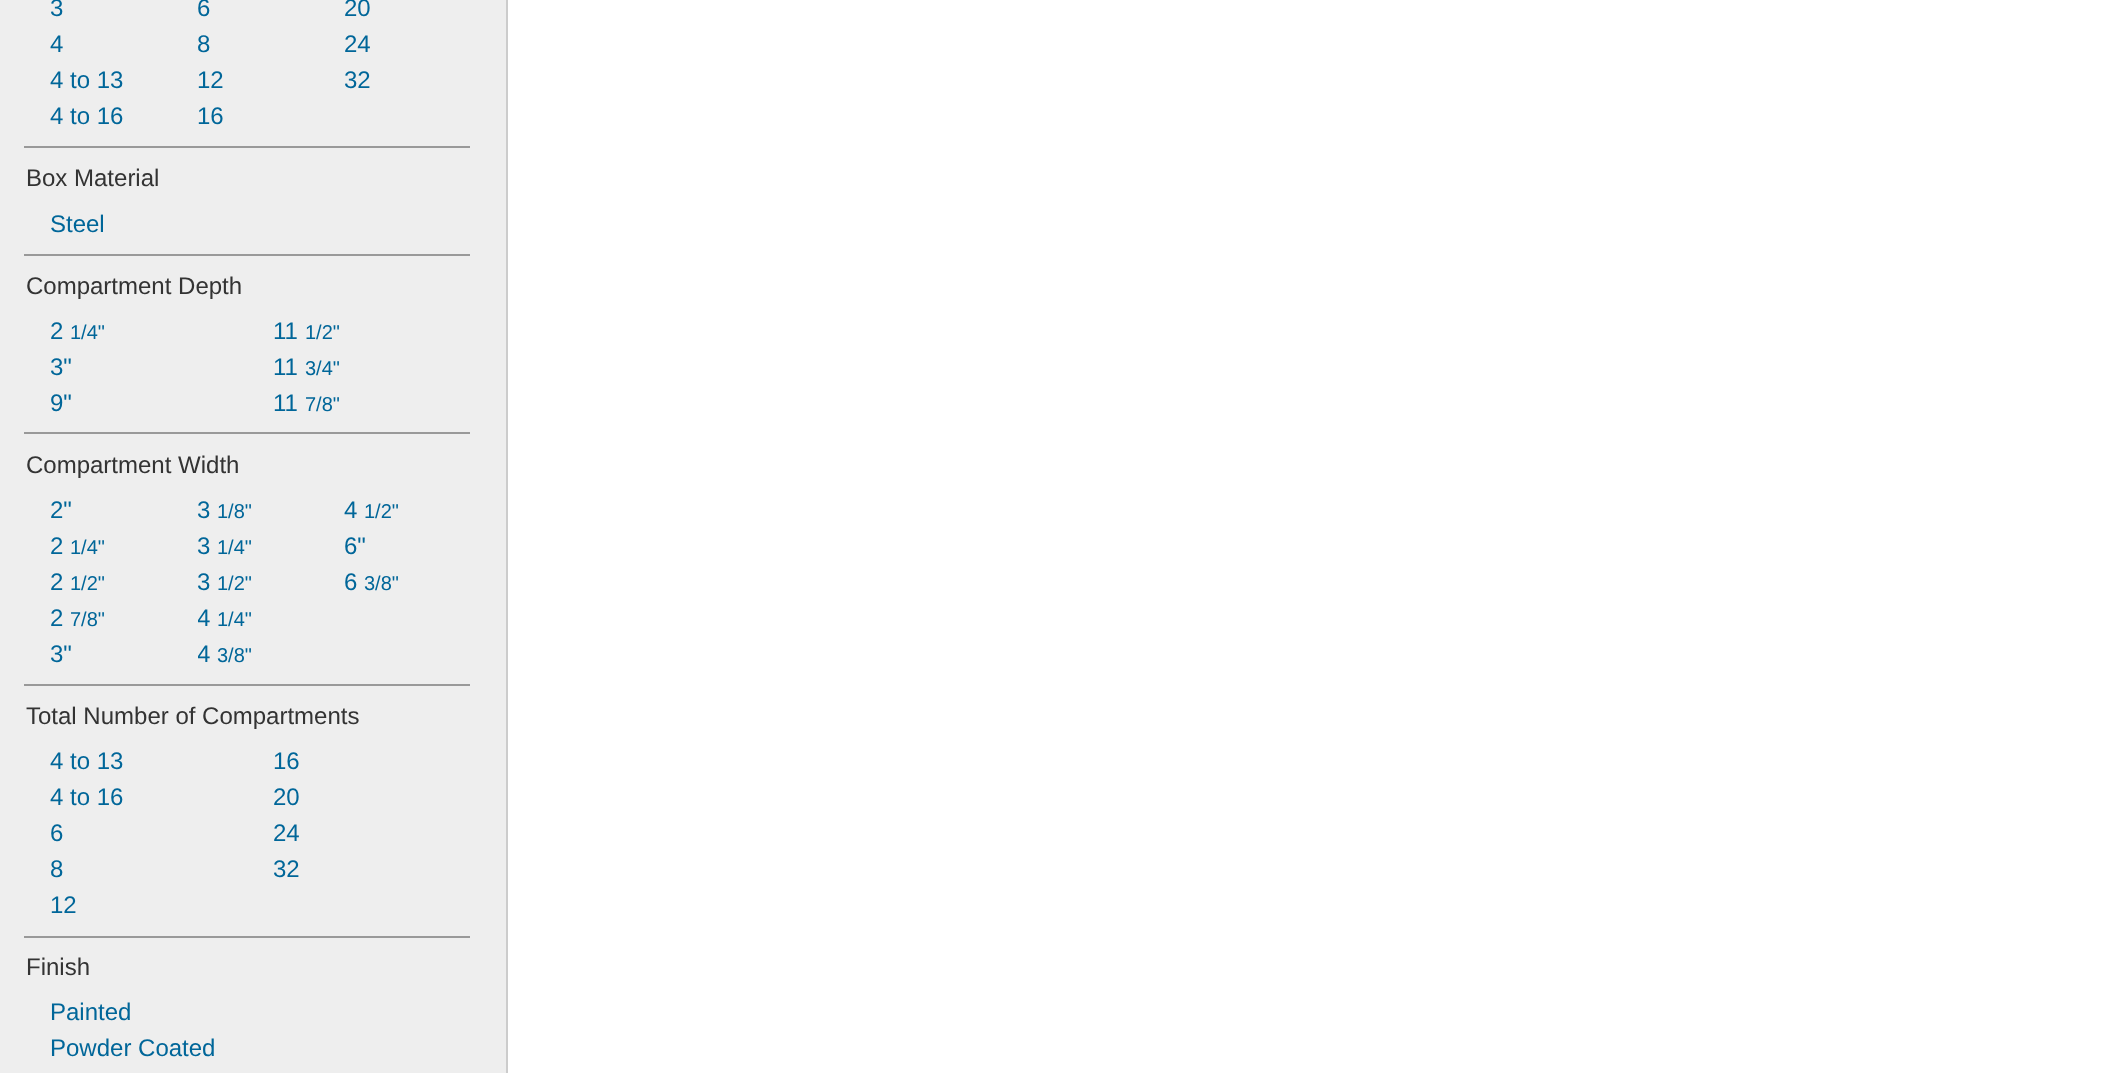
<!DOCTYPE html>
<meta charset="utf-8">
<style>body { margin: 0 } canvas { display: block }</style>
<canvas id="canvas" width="2110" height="1073"></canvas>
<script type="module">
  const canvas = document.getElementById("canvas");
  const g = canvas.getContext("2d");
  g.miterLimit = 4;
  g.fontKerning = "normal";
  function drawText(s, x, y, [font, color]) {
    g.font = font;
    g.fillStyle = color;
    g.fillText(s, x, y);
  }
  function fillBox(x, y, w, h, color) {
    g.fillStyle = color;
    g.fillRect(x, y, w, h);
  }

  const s1 = ["24px Liberation Sans", "#006699"];
  const s2 = ["24px Liberation Sans", "#333333"];
  const s3 = ["20px Liberation Sans", "#006699"];

  fillBox(0, 0, 2110, 1073, "#FFFFFF");
  fillBox(0, 0, 506, 1073, "#EEEEEE");
  fillBox(506, 0, 2, 1073, "#CCCCCC");
  drawText("3", 50, 16, s1);
  drawText("4", 50, 52, s1);
  drawText("4 to 13", 50, 88, s1);
  drawText("4 to 16", 50, 124, s1);
  drawText("6", 197, 16, s1);
  drawText("8", 197, 52, s1);
  drawText("12", 197, 88, s1);
  drawText("16", 197, 124, s1);
  drawText("20", 344, 16, s1);
  drawText("24", 344, 52, s1);
  drawText("32", 344, 88, s1);
  fillBox(24, 146, 446, 2, "#999999");
  drawText("Box Material", 26, 186, s2);
  drawText("Steel", 50, 232, s1);
  fillBox(24, 254, 446, 2, "#999999");
  drawText("Compartment Depth", 26, 294, s2);
  drawText("2", 50, 339, s1);
  drawText("1/4\"", 70, 339, s3);
  drawText("3\"", 50, 375, s1);
  drawText("9\"", 50, 411, s1);
  drawText("11", 273, 339, s1);
  drawText("1/2\"", 305, 339, s3);
  drawText("11", 273, 375, s1);
  drawText("3/4\"", 305, 375, s3);
  drawText("11", 273, 411, s1);
  drawText("7/8\"", 305, 411, s3);
  fillBox(24, 432, 446, 2, "#999999");
  drawText("Compartment Width", 26, 473, s2);
  drawText("2\"", 50, 518, s1);
  drawText("2", 50, 554, s1);
  drawText("1/4\"", 70, 554, s3);
  drawText("2", 50, 590, s1);
  drawText("1/2\"", 70, 590, s3);
  drawText("2", 50, 626, s1);
  drawText("7/8\"", 70, 626, s3);
  drawText("3\"", 50, 662, s1);
  drawText("3", 197, 518, s1);
  drawText("1/8\"", 217, 518, s3);
  drawText("3", 197, 554, s1);
  drawText("1/4\"", 217, 554, s3);
  drawText("3", 197, 590, s1);
  drawText("1/2\"", 217, 590, s3);
  g.save();
  g.beginPath();
  g.rect(198, 604, 122, 28);
  g.clip();
  drawText("4", 197, 626, s1);
  g.restore();
  drawText("1/4\"", 217, 626, s3);
  g.save();
  g.beginPath();
  g.rect(198, 640, 122, 28);
  g.clip();
  drawText("4", 197, 662, s1);
  g.restore();
  drawText("3/8\"", 217, 662, s3);
  drawText("4", 344, 518, s1);
  drawText("1/2\"", 364, 518, s3);
  drawText("6\"", 344, 554, s1);
  drawText("6", 344, 590, s1);
  drawText("3/8\"", 364, 590, s3);
  fillBox(24, 684, 446, 2, "#999999");
  drawText("Total Number of Compartments", 26, 724, s2);
  drawText("4 to 13", 50, 769, s1);
  drawText("4 to 16", 50, 805, s1);
  drawText("6", 50, 841, s1);
  drawText("8", 50, 877, s1);
  drawText("12", 50, 913, s1);
  drawText("16", 273, 769, s1);
  drawText("20", 273, 805, s1);
  drawText("24", 273, 841, s1);
  drawText("32", 273, 877, s1);
  fillBox(24, 936, 446, 2, "#999999");
  drawText("Finish", 26, 975, s2);
  drawText("Painted", 50, 1020, s1);
  drawText("Powder Coated", 50, 1056, s1);
</script>
